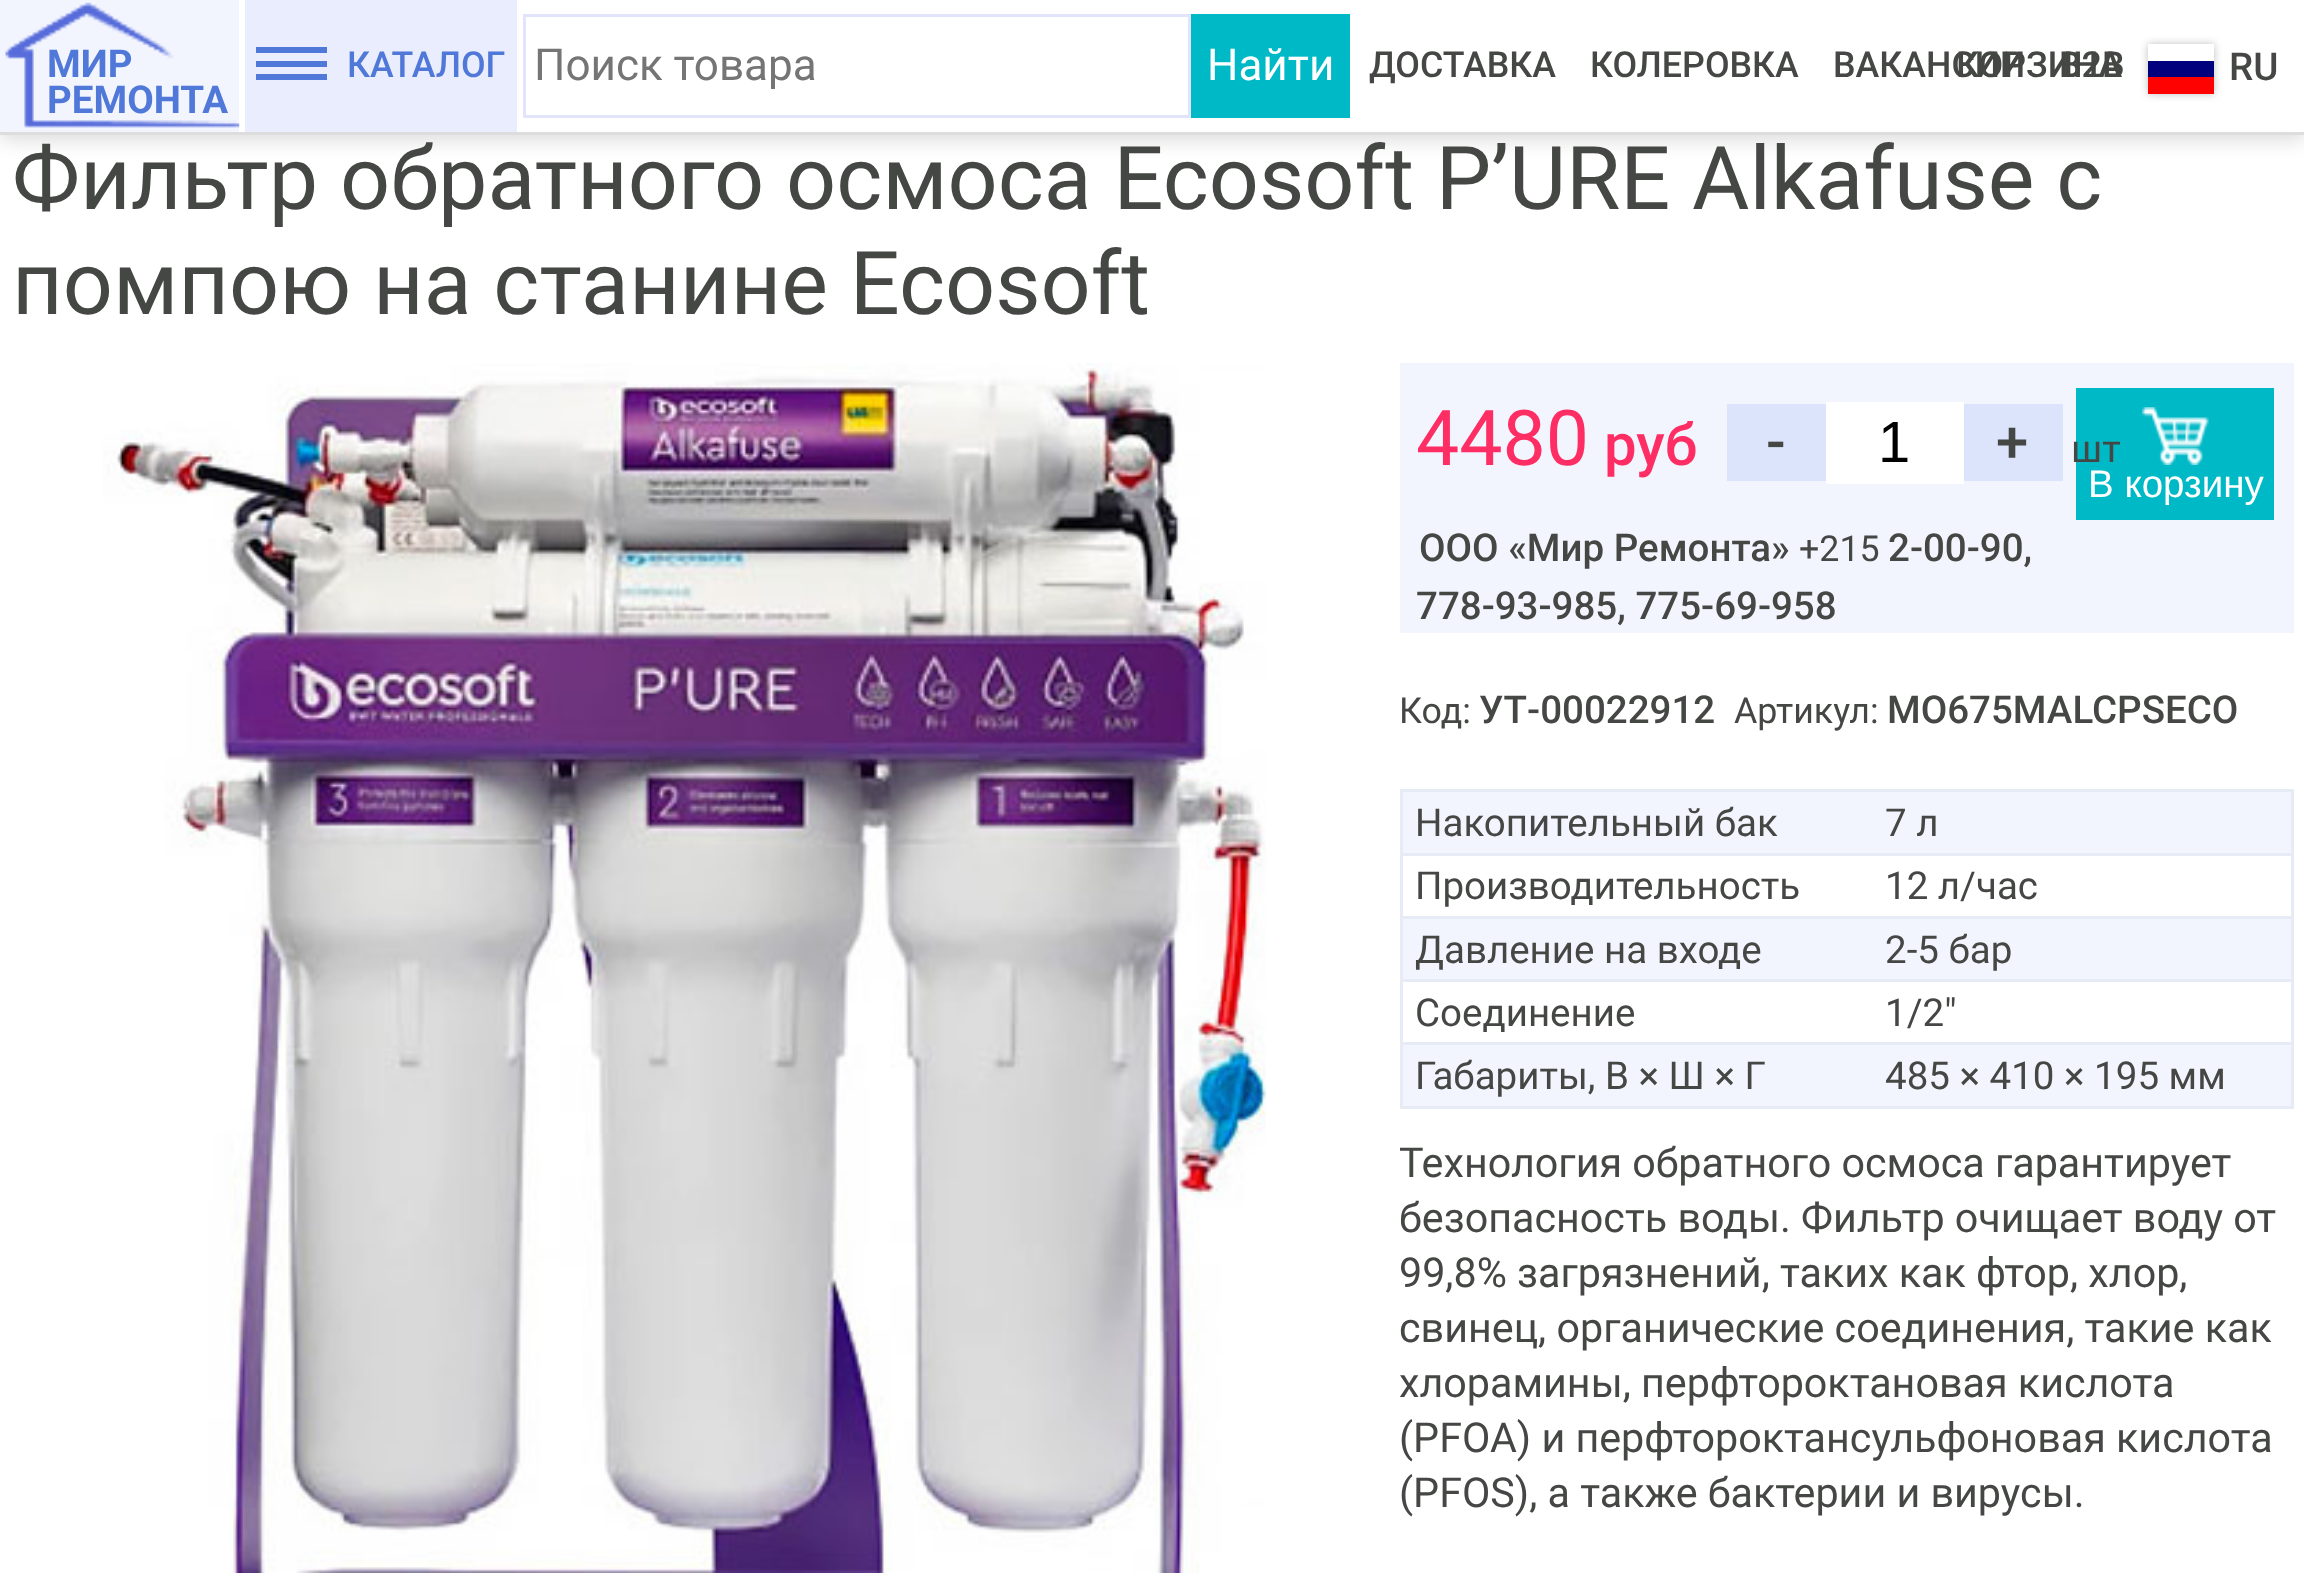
<!DOCTYPE html>
<meta charset="utf-8">
<style>body { margin: 0 } canvas { display: block }</style>
<canvas id="canvas" width="2304" height="1573"></canvas>
<script type="module">
  const canvas = document.getElementById("canvas");
  const g = canvas.getContext("2d");
  g.miterLimit = 4;
  g.fontKerning = "normal";
  function drawText(s, x, y, [font, color]) {
    g.font = font;
    g.fillStyle = color;
    g.fillText(s, x, y);
  }
  function fillBox(x, y, w, h, color) {
    g.fillStyle = color;
    g.fillRect(x, y, w, h);
  }
  async function drawPicture(src, x, y, w, h) {
    const img = new Image();
    img.src = src;
    await img.decode();
    g.drawImage(img, x, y, w, h);
  }

  const s1 = ["bold 38.5px Roboto", "#4F78D8"];
  const s2 = ["500 35.75px Roboto", "#4F78D8"];
  const s3 = ["44px Roboto", "#757575"];
  const s4 = ["44px Roboto", "#FFFFFF"];
  const s5 = ["500 35.75px Roboto", "#444743"];
  const s6 = ["500 38.5px Roboto", "#444743"];
  const s7 = ["88px Roboto", "#444743"];
  const s8 = ["77px Roboto", "#FE2D64"];
  const s9 = ["500 58px Roboto", "#FE2D64"];
  const s10 = ["500 58px Roboto", "#444743"];
  const s11 = ["58px Liberation Sans", "#000000"];
  const s12 = ["38.5px Roboto", "#444743"];
  const s13 = ["38.5px Liberation Sans", "#FFFFFF"];
  const s14 = ["35.75px Roboto", "#444743"];
  const s15 = ["41.25px Roboto", "#444743"];

  fillBox(0, 0, 2304, 1573, "#FFFFFF");
  g.fillStyle = "rgba(0, 0, 0, 0.14)";
  g.filter = "blur(9.5px)";
  g.beginPath();
  g.rect(0, 6, 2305, 134);
  g.fill();
  g.filter = "none";
  fillBox(239, 0, 2065, 132, "#FFFFFF");
  fillBox(0, 132, 2304, 3, "#DDDDDD");
  fillBox(0, 0, 239, 132, "#F3F5FE");
  await drawPicture("pic1.png", 5, 2, 235, 126);
  drawText("МИР", 47, 77, s1);
  drawText("РЕМОНТА", 47, 113, s1);
  fillBox(245, 0, 272, 132, "#EAEDFD");
  fillBox(256, 47, 71, 6, "#4F78D8");
  fillBox(256, 61, 71, 6, "#4F78D8");
  fillBox(256, 74, 71, 6, "#4F78D8");
  drawText("КАТАЛОГ", 347, 77, s2);
  g.strokeStyle = "#E1E4FB";
  g.lineWidth = 3;
  g.strokeRect(524.5, 15.5, 665, 101);
  drawText("Поиск товара", 534, 80, s3);
  fillBox(1191, 14, 159, 104, "#00B9C7");
  drawText("Найти", 1207, 80, s4);
  drawText("ДОСТАВКА", 1369, 77, s5);
  drawText("КОЛЕРОВКА", 1590, 77, s5);
  drawText("ВАКАНСИИ", 1833, 77, s5);
  drawText("B2B", 2059, 77, s5);
  drawText("КОРЗИНА", 1956, 77, s5);
  g.fillStyle = "rgba(0, 0, 0, 0.25)";
  g.filter = "blur(4px)";
  g.beginPath();
  g.rect(2148, 44, 66, 50);
  g.fill();
  g.filter = "none";
  fillBox(2148, 44, 66, 17, "#FFFFFF");
  fillBox(2148, 61, 66, 16, "#01017E");
  fillBox(2148, 77, 66, 17, "#FE0101");
  drawText("RU", 2229, 80, s6);
  drawText("Фильтр обратного осмоса Ecosoft P’URE Alkafuse с", 12, 209, s7);
  drawText("помпою на станине Ecosoft", 12, 314, s7);
  await drawPicture("pic2.png", 103, 363, 1163, 1210);
  fillBox(1400, 363, 894, 270, "#F3F5FE");
  drawText("4480", 1416, 465, s8);
  drawText("руб", 1604, 465, s9);
  fillBox(1727, 404, 99, 77, "#DCE4FC");
  drawText("-", 1766, 462, s10);
  fillBox(1826, 402, 138, 82, "#FFFFFF");
  drawText("1", 1878, 462, s11);
  fillBox(1964, 404, 99, 77, "#DCE4FC");
  drawText("+", 1996, 462, s10);
  fillBox(2076, 388, 198, 132, "#00B9C7");
  drawText("шт", 2071, 462, s12);
  await drawPicture("pic3.png", 2142, 407, 67, 58);
  drawText("В корзину", 2088, 497, s13);
  drawText("ООО «Мир Ремонта»", 1419, 561, s6);
  drawText("+215", 1799, 561, s14);
  drawText("2-00-90,", 1888, 561, s6);
  drawText("778-93-985, 775-69-958", 1416, 619, s6);
  drawText("Код:", 1399, 723, s14);
  drawText("УТ-00022912", 1479, 723, s6);
  drawText("Артикул:", 1734, 723, s14);
  drawText("MO675MALCPSECO", 1887, 723, s6);
  fillBox(1403, 792, 888, 61, "#F3F5FE");
  fillBox(1400, 789, 894, 3, "#E7EBF5");
  fillBox(1400, 853, 894, 3, "#E7EBF5");
  fillBox(1400, 916, 894, 3, "#E7EBF5");
  fillBox(1400, 979, 894, 3, "#E7EBF5");
  fillBox(1400, 1042, 894, 3, "#E7EBF5");
  fillBox(2291, 1042, 3, 66, "#E7EBF5");
  fillBox(2291, 979, 3, 66, "#E7EBF5");
  fillBox(2291, 916, 3, 66, "#E7EBF5");
  fillBox(2291, 853, 3, 66, "#E7EBF5");
  fillBox(2291, 789, 3, 66, "#E7EBF5");
  fillBox(1400, 1106, 894, 3, "#E7EBF5");
  fillBox(1400, 1042, 3, 66, "#E7EBF5");
  fillBox(1400, 979, 3, 66, "#E7EBF5");
  fillBox(1400, 916, 3, 66, "#E7EBF5");
  fillBox(1400, 853, 3, 66, "#E7EBF5");
  fillBox(1400, 789, 3, 66, "#E7EBF5");
  drawText("Накопительный бак", 1415, 836, s12);
  drawText("7 л", 1885, 836, s12);
  drawText("Производительность", 1415, 899, s12);
  drawText("12 л/час", 1885, 899, s12);
  fillBox(1403, 919, 888, 60, "#F3F5FE");
  drawText("Давление на входе", 1415, 963, s12);
  drawText("2-5 бар", 1885, 963, s12);
  drawText("Соединение", 1415, 1026, s12);
  drawText("1/2″", 1885, 1026, s12);
  fillBox(1403, 1045, 888, 61, "#F3F5FE");
  drawText("Габариты, В × Ш × Г", 1415, 1089, s12);
  drawText("485 × 410 × 195 мм", 1885, 1089, s12);
  drawText("Технология обратного осмоса гарантирует", 1399, 1177, s15);
  drawText("безопасность воды. Фильтр очищает воду от", 1399, 1232, s15);
  drawText("99,8% загрязнений, таких как фтор, хлор,", 1399, 1287, s15);
  drawText("свинец, органические соединения, такие как", 1399, 1342, s15);
  drawText("хлорамины, перфтороктановая кислота", 1399, 1397, s15);
  drawText("(PFOA) и перфтороктансульфоновая кислота", 1399, 1452, s15);
  drawText("(PFOS), а также бактерии и вирусы.", 1399, 1507, s15);
</script>
